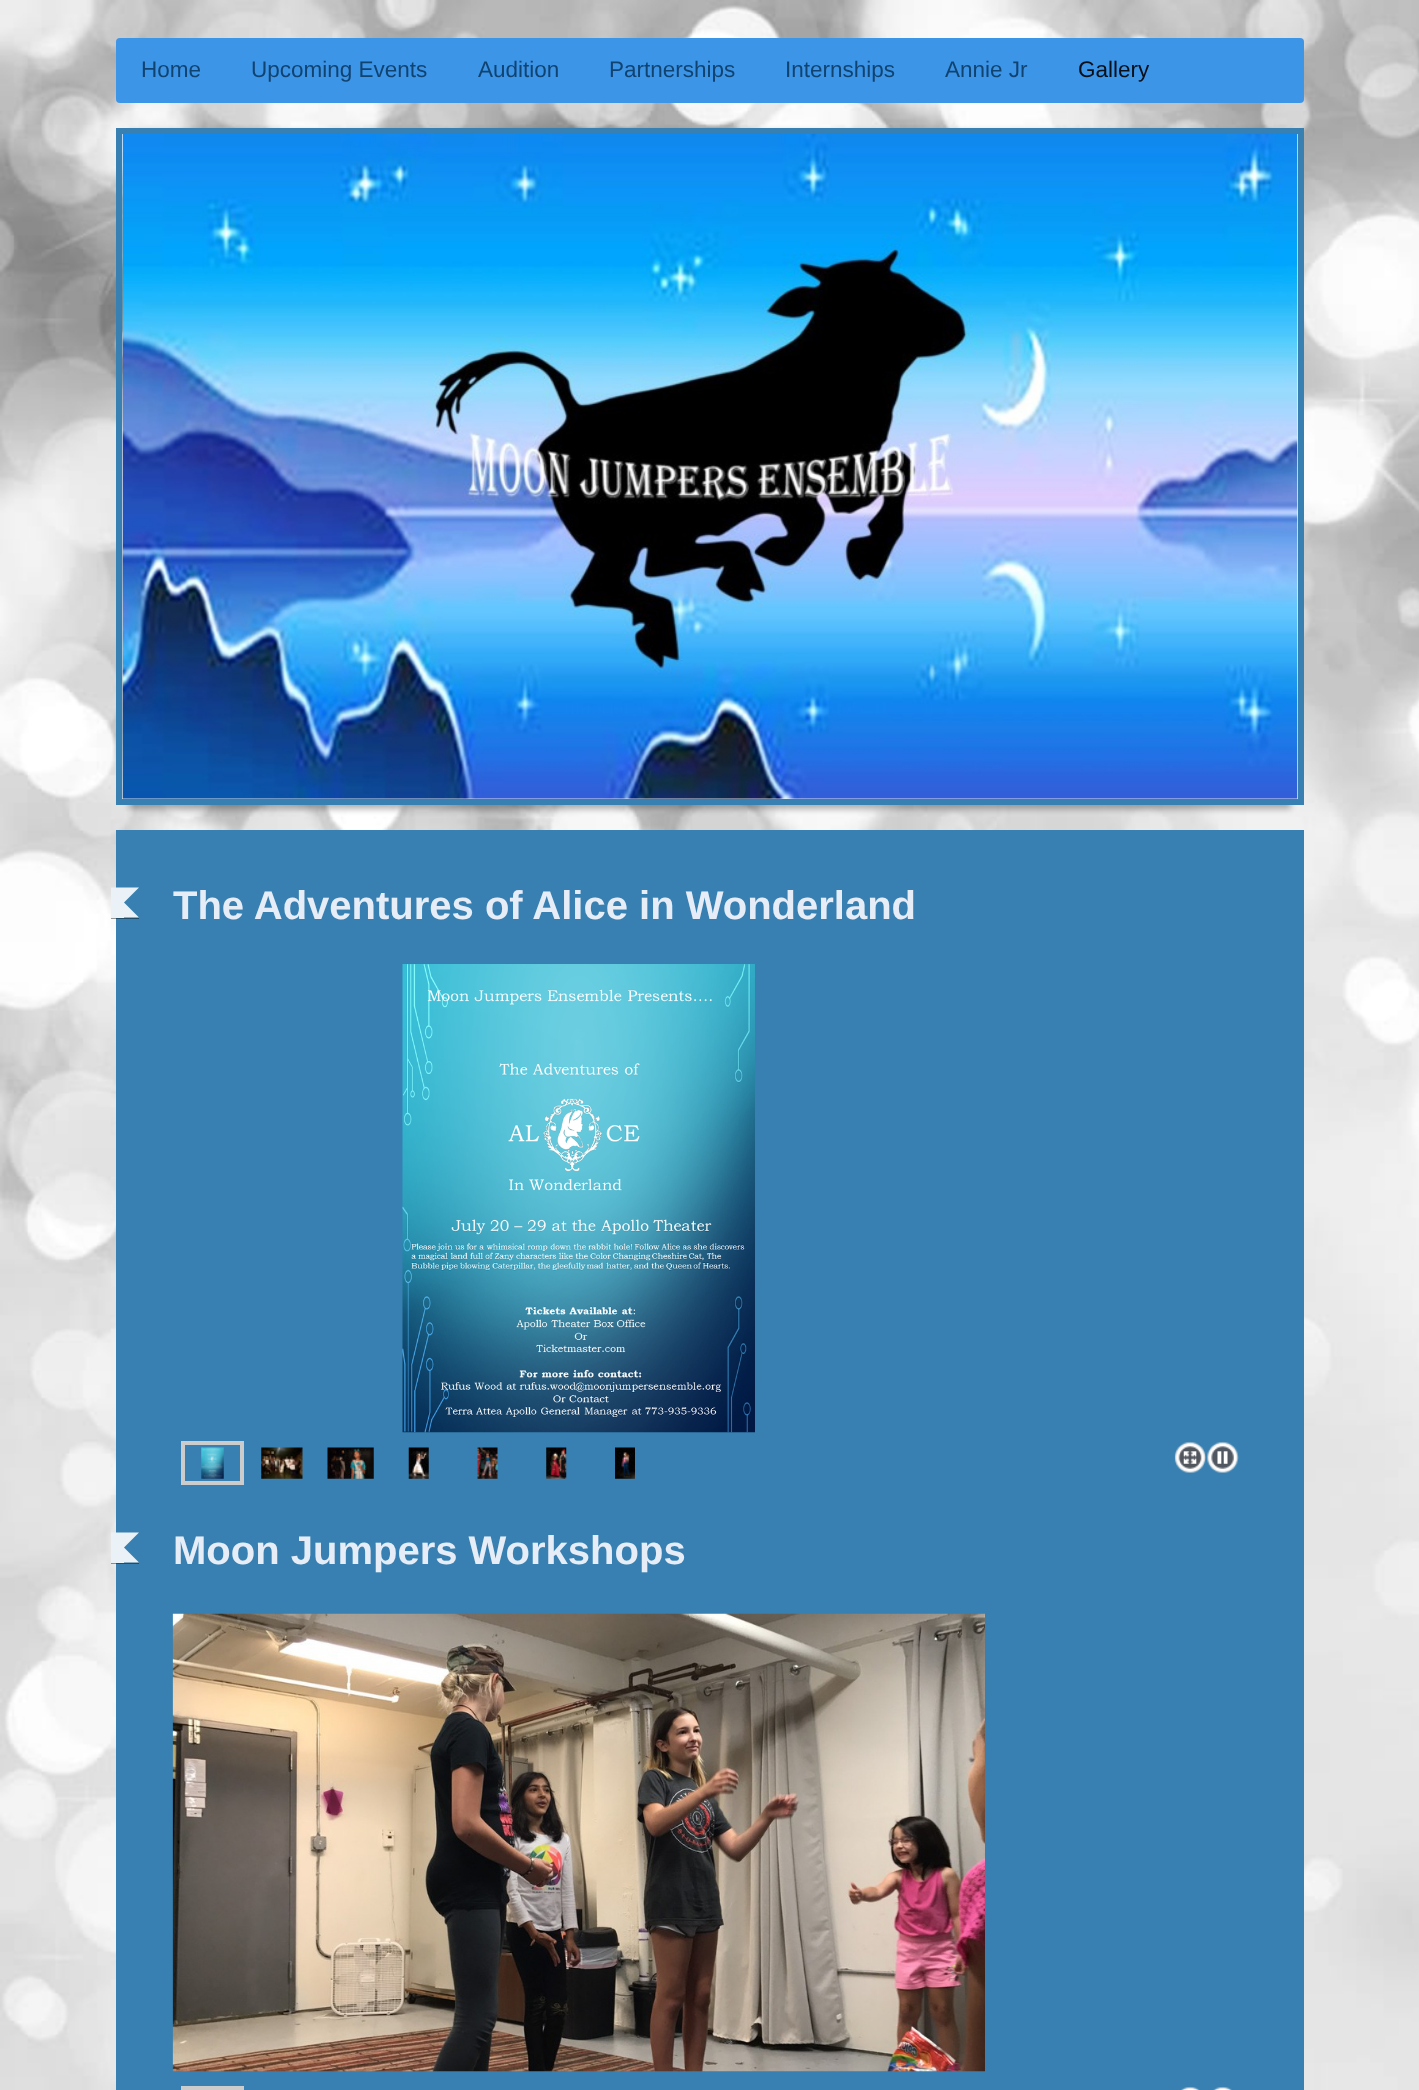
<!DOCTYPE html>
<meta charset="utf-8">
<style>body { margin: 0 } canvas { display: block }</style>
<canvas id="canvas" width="1419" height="2090"></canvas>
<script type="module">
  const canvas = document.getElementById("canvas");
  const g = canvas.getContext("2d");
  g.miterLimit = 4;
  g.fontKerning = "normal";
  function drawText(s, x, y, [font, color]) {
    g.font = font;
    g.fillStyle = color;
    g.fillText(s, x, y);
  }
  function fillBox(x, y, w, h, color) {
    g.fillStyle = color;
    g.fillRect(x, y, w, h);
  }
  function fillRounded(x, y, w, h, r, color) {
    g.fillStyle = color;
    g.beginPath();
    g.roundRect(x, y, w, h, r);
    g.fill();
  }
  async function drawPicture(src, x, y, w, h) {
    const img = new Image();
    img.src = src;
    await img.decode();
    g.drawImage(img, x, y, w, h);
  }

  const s1 = ["22.5px Liberation Sans", "#114371"];
  const s2 = ["22.5px Liberation Sans", "#060F17"];
  const s3 = ["bold 40px Liberation Sans", "#E6EDF7"];

  fillBox(0, 0, 1419, 2090, "#FFFFFF");
  await drawPicture("pic1.png", 0, 0, 1419, 2090);
  fillRounded(116, 38, 1188, 65, 4, "#3C95E7");
  drawText("Home", 141, 77, s1);
  drawText("Upcoming Events", 251, 77, s1);
  drawText("Audition", 478, 77, s1);
  drawText("Partnerships", 609, 77, s1);
  drawText("Internships", 785, 77, s1);
  drawText("Annie Jr", 945, 77, s1);
  drawText("Gallery", 1078, 77, s2);
  g.fillStyle = "rgba(0, 0, 0, 0.3)";
  g.filter = "blur(3px)";
  g.beginPath();
  g.rect(129, 131, 1162, 678);
  g.fill();
  g.filter = "none";
  g.strokeStyle = "#3780B1";
  g.lineWidth = 6;
  g.strokeRect(119, 131, 1182, 671);
  fillBox(123, 134, 1175, 665, "#EEEEEE");
  await drawPicture("pic2.png", 122, 133, 1176, 666);
  fillBox(116, 830, 1188, 1260, "#3780B1");
  g.fillStyle = "rgba(0, 0, 0, 0.4)";
  g.beginPath();
  g.moveTo(111, 889);
  g.lineTo(111, 919);
  g.lineTo(139, 919);
  g.lineTo(139, 889);
  g.lineTo(139, 917.5);
  g.lineTo(111, 917.5);
  g.closePath();
  g.fill();
  g.fillStyle = "#EBF2F7";
  g.beginPath();
  g.moveTo(111, 887.5);
  g.lineTo(139, 887.5);
  g.lineTo(124, 902.5);
  g.closePath();
  g.fill();
  g.beginPath();
  g.moveTo(139, 917.5);
  g.lineTo(111, 917.5);
  g.lineTo(124, 902.5);
  g.closePath();
  g.fill();
  fillBox(111, 888, 13, 30, "#EBF2F7");
  drawText("The Adventures of Alice in Wonderland", 173, 919, s3);
  await drawPicture("pic3.png", 402, 964, 353, 469);
  g.strokeStyle = "#CCCCCC";
  g.lineWidth = 4;
  g.strokeRect(183, 1443, 59, 40);
  await drawPicture("pic4.png", 201, 1447, 23, 32);
  await drawPicture("pic5.png", 261, 1447, 42, 32);
  await drawPicture("pic6.png", 327, 1447, 47, 32);
  await drawPicture("pic7.png", 408, 1447, 21, 32);
  await drawPicture("pic8.png", 477, 1447, 21, 32);
  await drawPicture("pic9.png", 546, 1447, 21, 32);
  await drawPicture("pic10.png", 615, 1447, 20, 32);
  await drawPicture("pic11.png", 1174, 1441, 33, 32);
  await drawPicture("pic12.png", 1207, 1441, 32, 32);
  g.fillStyle = "rgba(0, 0, 0, 0.4)";
  g.beginPath();
  g.moveTo(111, 1534);
  g.lineTo(111, 1564);
  g.lineTo(139, 1564);
  g.lineTo(139, 1534);
  g.lineTo(139, 1562.5);
  g.lineTo(111, 1562.5);
  g.closePath();
  g.fill();
  g.fillStyle = "#EBF2F7";
  g.beginPath();
  g.moveTo(111, 1532.5);
  g.lineTo(139, 1532.5);
  g.lineTo(124, 1547.5);
  g.closePath();
  g.fill();
  g.beginPath();
  g.moveTo(139, 1562.5);
  g.lineTo(111, 1562.5);
  g.lineTo(124, 1547.5);
  g.closePath();
  g.fill();
  fillBox(111, 1533, 13, 30, "#EBF2F7");
  drawText("Moon Jumpers Workshops", 173, 1564, s3);
  await drawPicture("pic13.png", 172, 1613, 813, 459);
  g.strokeRect(183, 2088, 59, 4);
  await drawPicture("pic14.png", 1181, 2086, 19, 4);
  await drawPicture("pic15.png", 1213, 2086, 19, 4);
</script>
